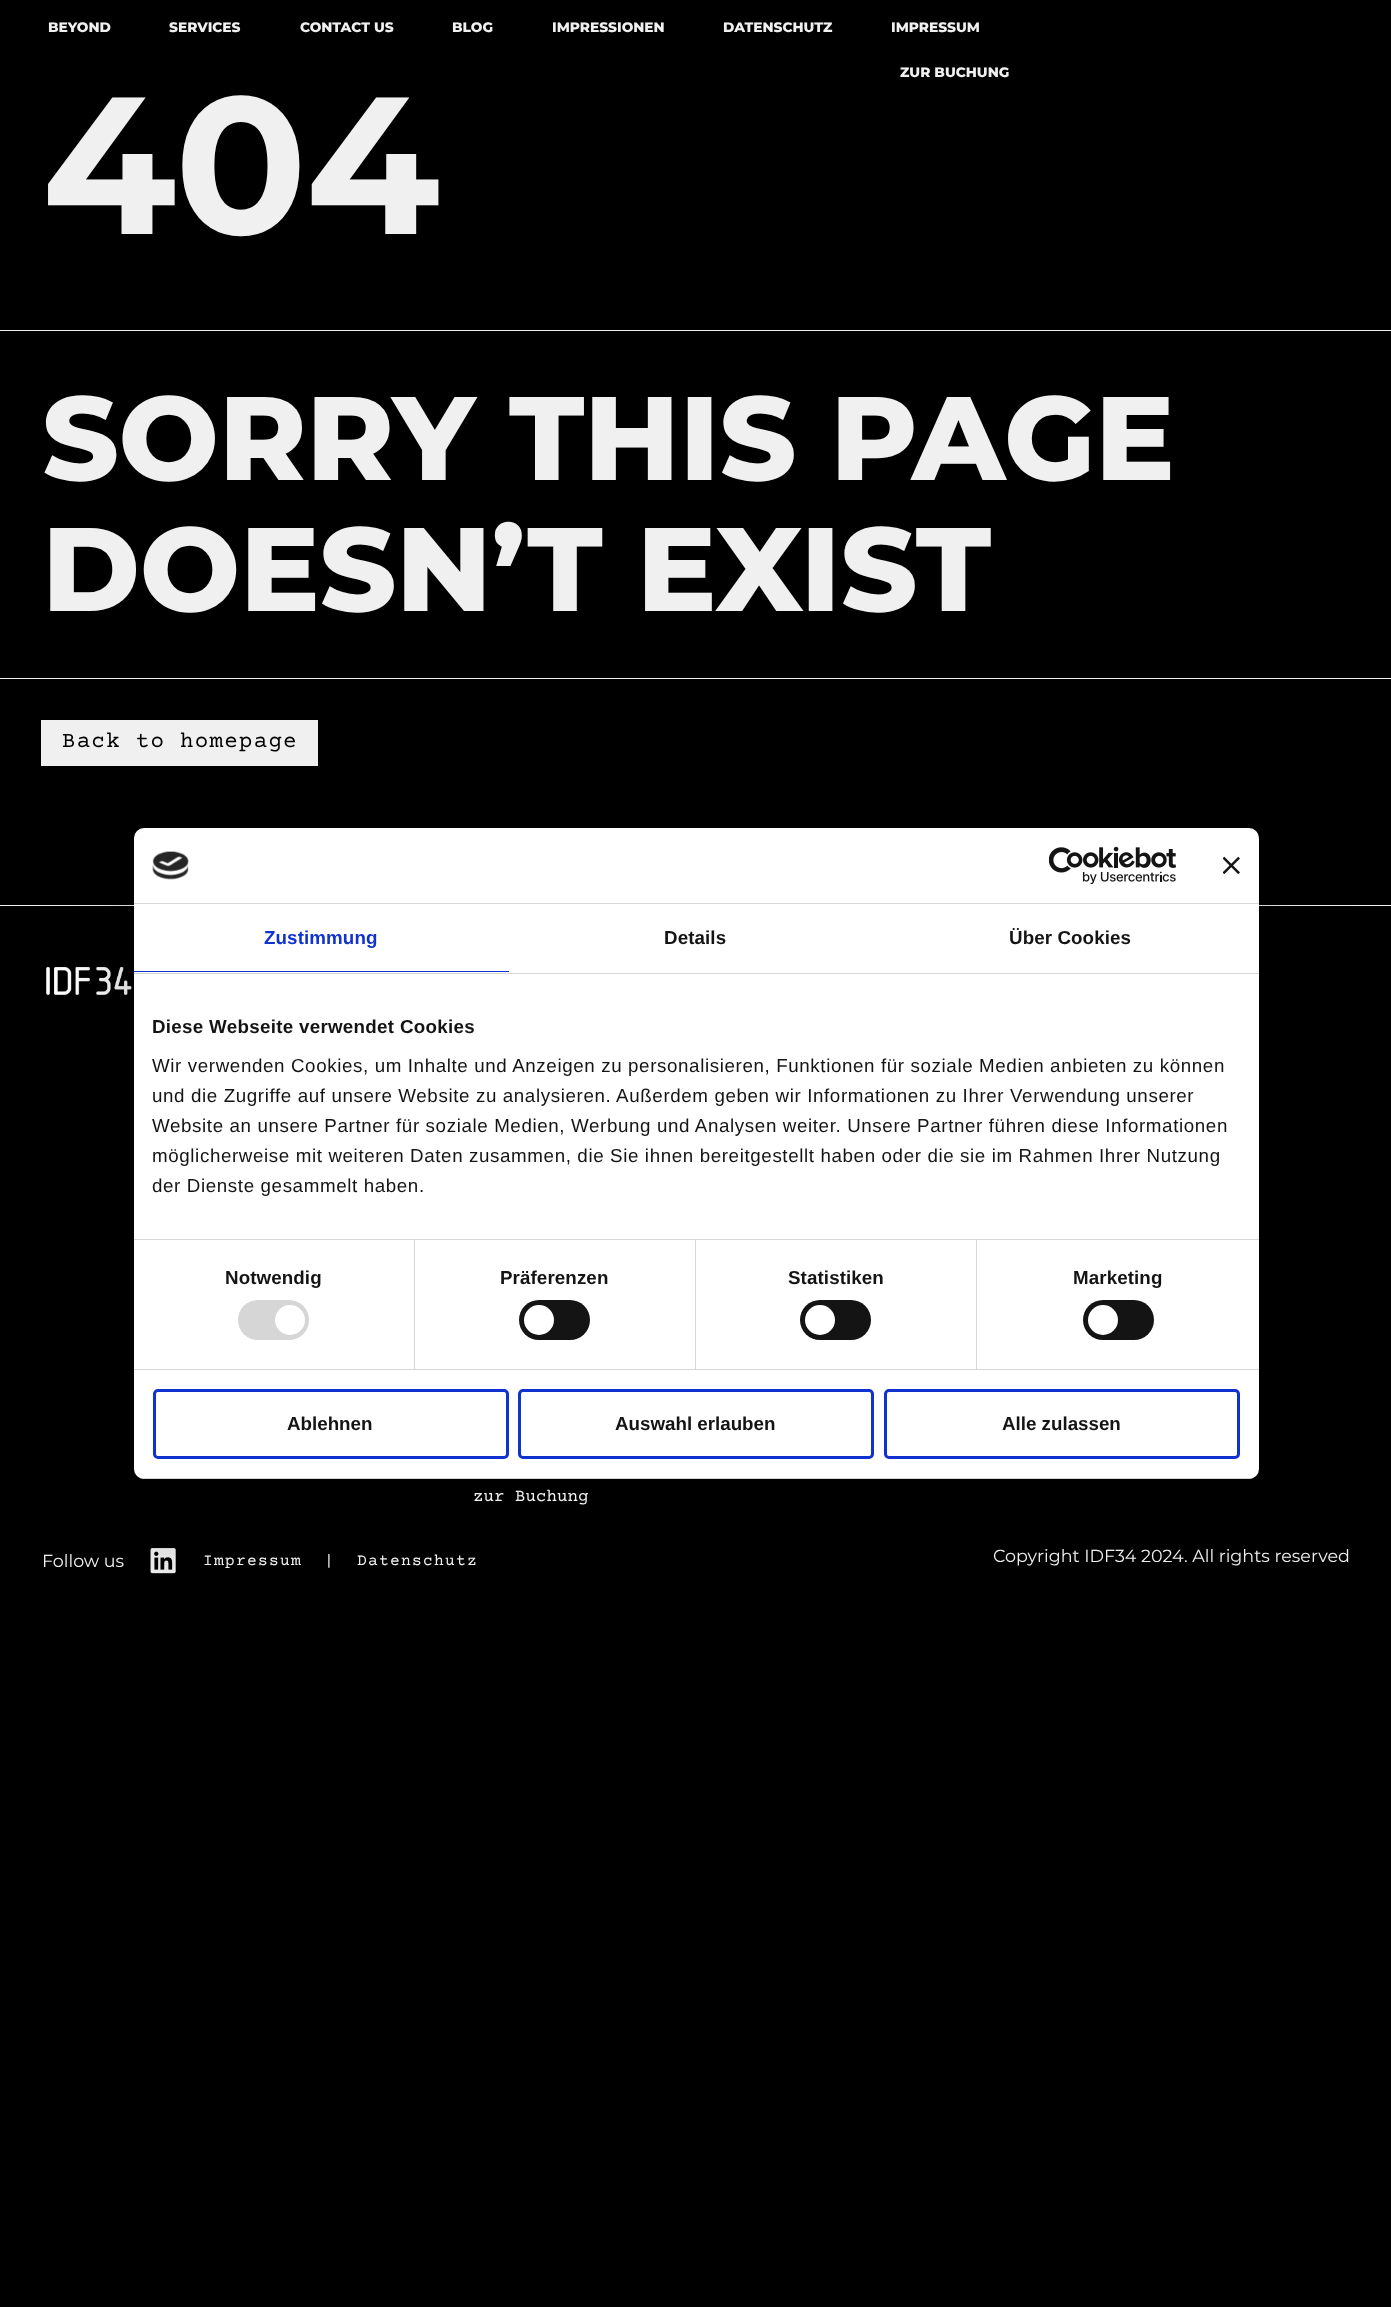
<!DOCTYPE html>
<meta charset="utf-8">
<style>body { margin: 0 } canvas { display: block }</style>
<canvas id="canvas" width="1391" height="2307"></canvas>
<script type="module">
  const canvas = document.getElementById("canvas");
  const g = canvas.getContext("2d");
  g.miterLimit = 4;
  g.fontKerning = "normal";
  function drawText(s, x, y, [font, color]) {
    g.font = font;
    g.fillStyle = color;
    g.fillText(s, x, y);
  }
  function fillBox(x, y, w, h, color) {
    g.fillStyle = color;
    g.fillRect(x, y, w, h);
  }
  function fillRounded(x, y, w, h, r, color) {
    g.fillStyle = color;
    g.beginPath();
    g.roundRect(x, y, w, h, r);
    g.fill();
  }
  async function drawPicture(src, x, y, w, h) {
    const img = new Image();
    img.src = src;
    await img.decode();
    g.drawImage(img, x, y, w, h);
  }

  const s1 = ["800 13.75px Montserrat", "#F0F0F0"];
  const s2 = ["bold 195px Montserrat", "#F0F0F0"];
  const s3 = ["800 118.75px Montserrat", "#F0F0F0"];
  const s4 = ["22.5px Courier Prime", "#000000"];
  const s5 = ["bold 18.75px Liberation Sans", "#1032CF"];
  const s6 = ["bold 18.75px Liberation Sans", "#141414"];
  const s7 = ["18.75px Liberation Sans", "#141414"];
  const s8 = ["17.5px Courier Prime", "#F0F0F0"];
  const s9 = ["17.5px Montserrat", "#F0F0F0"];
  const s10 = ["16.25px Courier Prime", "#F0F0F0"];

  fillBox(0, 0, 1391, 2307, "#000000");
  drawText("BEYOND", 48, 32, s1);
  drawText("SERVICES", 169, 32, s1);
  drawText("CONTACT US", 300, 32, s1);
  drawText("BLOG", 452, 32, s1);
  drawText("IMPRESSIONEN", 552, 32, s1);
  drawText("DATENSCHUTZ", 723, 32, s1);
  drawText("IMPRESSUM", 891, 32, s1);
  drawText("ZUR BUCHUNG", 900, 77, s1);
  g.letterSpacing = "-1.5px";
  drawText("404", 42, 234, s2);
  fillBox(0, 330, 1391, 1, "#F0F0F0");
  fillBox(0, 678, 1391, 1, "#F0F0F0");
  g.letterSpacing = "-0.3px";
  drawText("SORRY THIS PAGE", 42, 480, s3);
  drawText("DOESN’T EXIST", 42, 611, s3);
  fillBox(41, 720, 277, 46, "#F0F0F0");
  g.letterSpacing = "1.25px";
  drawText("Back to homepage", 62, 747, s4);
  fillBox(0, 905, 1391, 1, "#F0F0F0");
  await drawPicture("pic4.png", 46, 966, 86, 30);
  await drawPicture("pic5.png", 150, 1548, 26, 26);
  g.fillStyle = "rgba(0, 0, 0, 0.3)";
  g.filter = "blur(42.5px)";
  g.beginPath();
  g.roundRect(134, 868, 1125, 651, 10);
  g.fill();
  g.filter = "none";
  fillRounded(134, 828, 1125, 651, 10, "#FFFFFF");
  fillBox(134, 903, 1125, 1, "#D6D6D6");
  await drawPicture("pic1.png", 152, 851, 37, 29);
  await drawPicture("pic2.png", 1049, 846, 127, 38);
  await drawPicture("pic3.png", 1223, 856, 17, 18);
  fillBox(134, 973, 1125, 1, "#D6D6D6");
  fillBox(134, 971, 375, 1, "#1032CF");
  g.letterSpacing = "0.1px";
  drawText("Zustimmung", 264, 944, s5);
  drawText("Details", 664, 944, s6);
  drawText("Über Cookies", 1009, 944, s6);
  fillBox(134, 1239, 1125, 1, "#D6D6D6");
  g.letterSpacing = "0.3px";
  drawText("Diese Webseite verwendet Cookies", 152, 1033, s6);
  g.letterSpacing = "0.62px";
  drawText("Wir verwenden Cookies, um Inhalte und Anzeigen zu personalisieren, Funktionen für soziale Medien anbieten zu können", 152, 1072, s7);
  drawText("und die Zugriffe auf unsere Website zu analysieren. Außerdem geben wir Informationen zu Ihrer Verwendung unserer", 152, 1102, s7);
  drawText("Website an unsere Partner für soziale Medien, Werbung und Analysen weiter. Unsere Partner führen diese Informationen", 152, 1132, s7);
  drawText("möglicherweise mit weiteren Daten zusammen, die Sie ihnen bereitgestellt haben oder die sie im Rahmen Ihrer Nutzung", 152, 1162, s7);
  drawText("der Dienste gesammelt haben.", 152, 1192, s7);
  fillBox(134, 1369, 1125, 1, "#D6D6D6");
  fillBox(414, 1240, 1, 129, "#D6D6D6");
  g.letterSpacing = "0.1px";
  drawText("Notwendig", 225, 1284, s6);
  fillRounded(238, 1300, 71, 40, 20, "#D6D6D6");
  g.fillStyle = "#FFFFFF";
  g.beginPath();
  g.arc(290, 1320, 15, 0, Math.PI * 2);
  g.fill();
  fillBox(695, 1240, 1, 129, "#D6D6D6");
  drawText("Präferenzen", 500, 1284, s6);
  fillRounded(519, 1300, 71, 40, 20, "#141414");
  g.fillStyle = "#FFFFFF";
  g.beginPath();
  g.arc(539, 1320, 15, 0, Math.PI * 2);
  g.fill();
  fillBox(976, 1240, 1, 129, "#D6D6D6");
  drawText("Statistiken", 788, 1284, s6);
  fillRounded(800, 1300, 71, 40, 20, "#141414");
  g.fillStyle = "#FFFFFF";
  g.beginPath();
  g.arc(820, 1320, 15, 0, Math.PI * 2);
  g.fill();
  drawText("Marketing", 1073, 1284, s6);
  fillRounded(1083, 1300, 71, 40, 20, "#141414");
  g.fillStyle = "#FFFFFF";
  g.beginPath();
  g.arc(1103, 1320, 15, 0, Math.PI * 2);
  g.fill();
  g.save();
  g.beginPath();
  g.roundRect(134, 828, 1125, 651, 10);
  g.clip();
  fillBox(134, 1478, 1125, 1, "#D6D6D6");
  g.restore();
  g.beginPath();
  g.roundRect(154.5, 1390.5, 353, 67, 3.5);
  g.strokeStyle = "#1032CF";
  g.lineWidth = 3;
  g.stroke();
  g.letterSpacing = "0px";
  drawText("Ablehnen", 287, 1430, s6);
  g.beginPath();
  g.roundRect(519.5, 1390.5, 353, 67, 3.5);
  g.stroke();
  drawText("Auswahl erlauben", 615, 1430, s6);
  g.beginPath();
  g.roundRect(885.5, 1390.5, 353, 67, 3.5);
  g.stroke();
  drawText("Alle zulassen", 1002, 1430, s6);
  drawText("zur Buchung", 473, 1501, s8);
  drawText("Follow us", 42, 1567, s9);
  g.letterSpacing = "1.25px";
  drawText("Impressum", 203, 1565, s10);
  drawText("|", 324, 1565, s10);
  drawText("Datenschutz", 357, 1565, s10);
  g.letterSpacing = "0px";
  drawText("Copyright IDF34 2024. All rights reserved", 993, 1562, s9);
</script>
